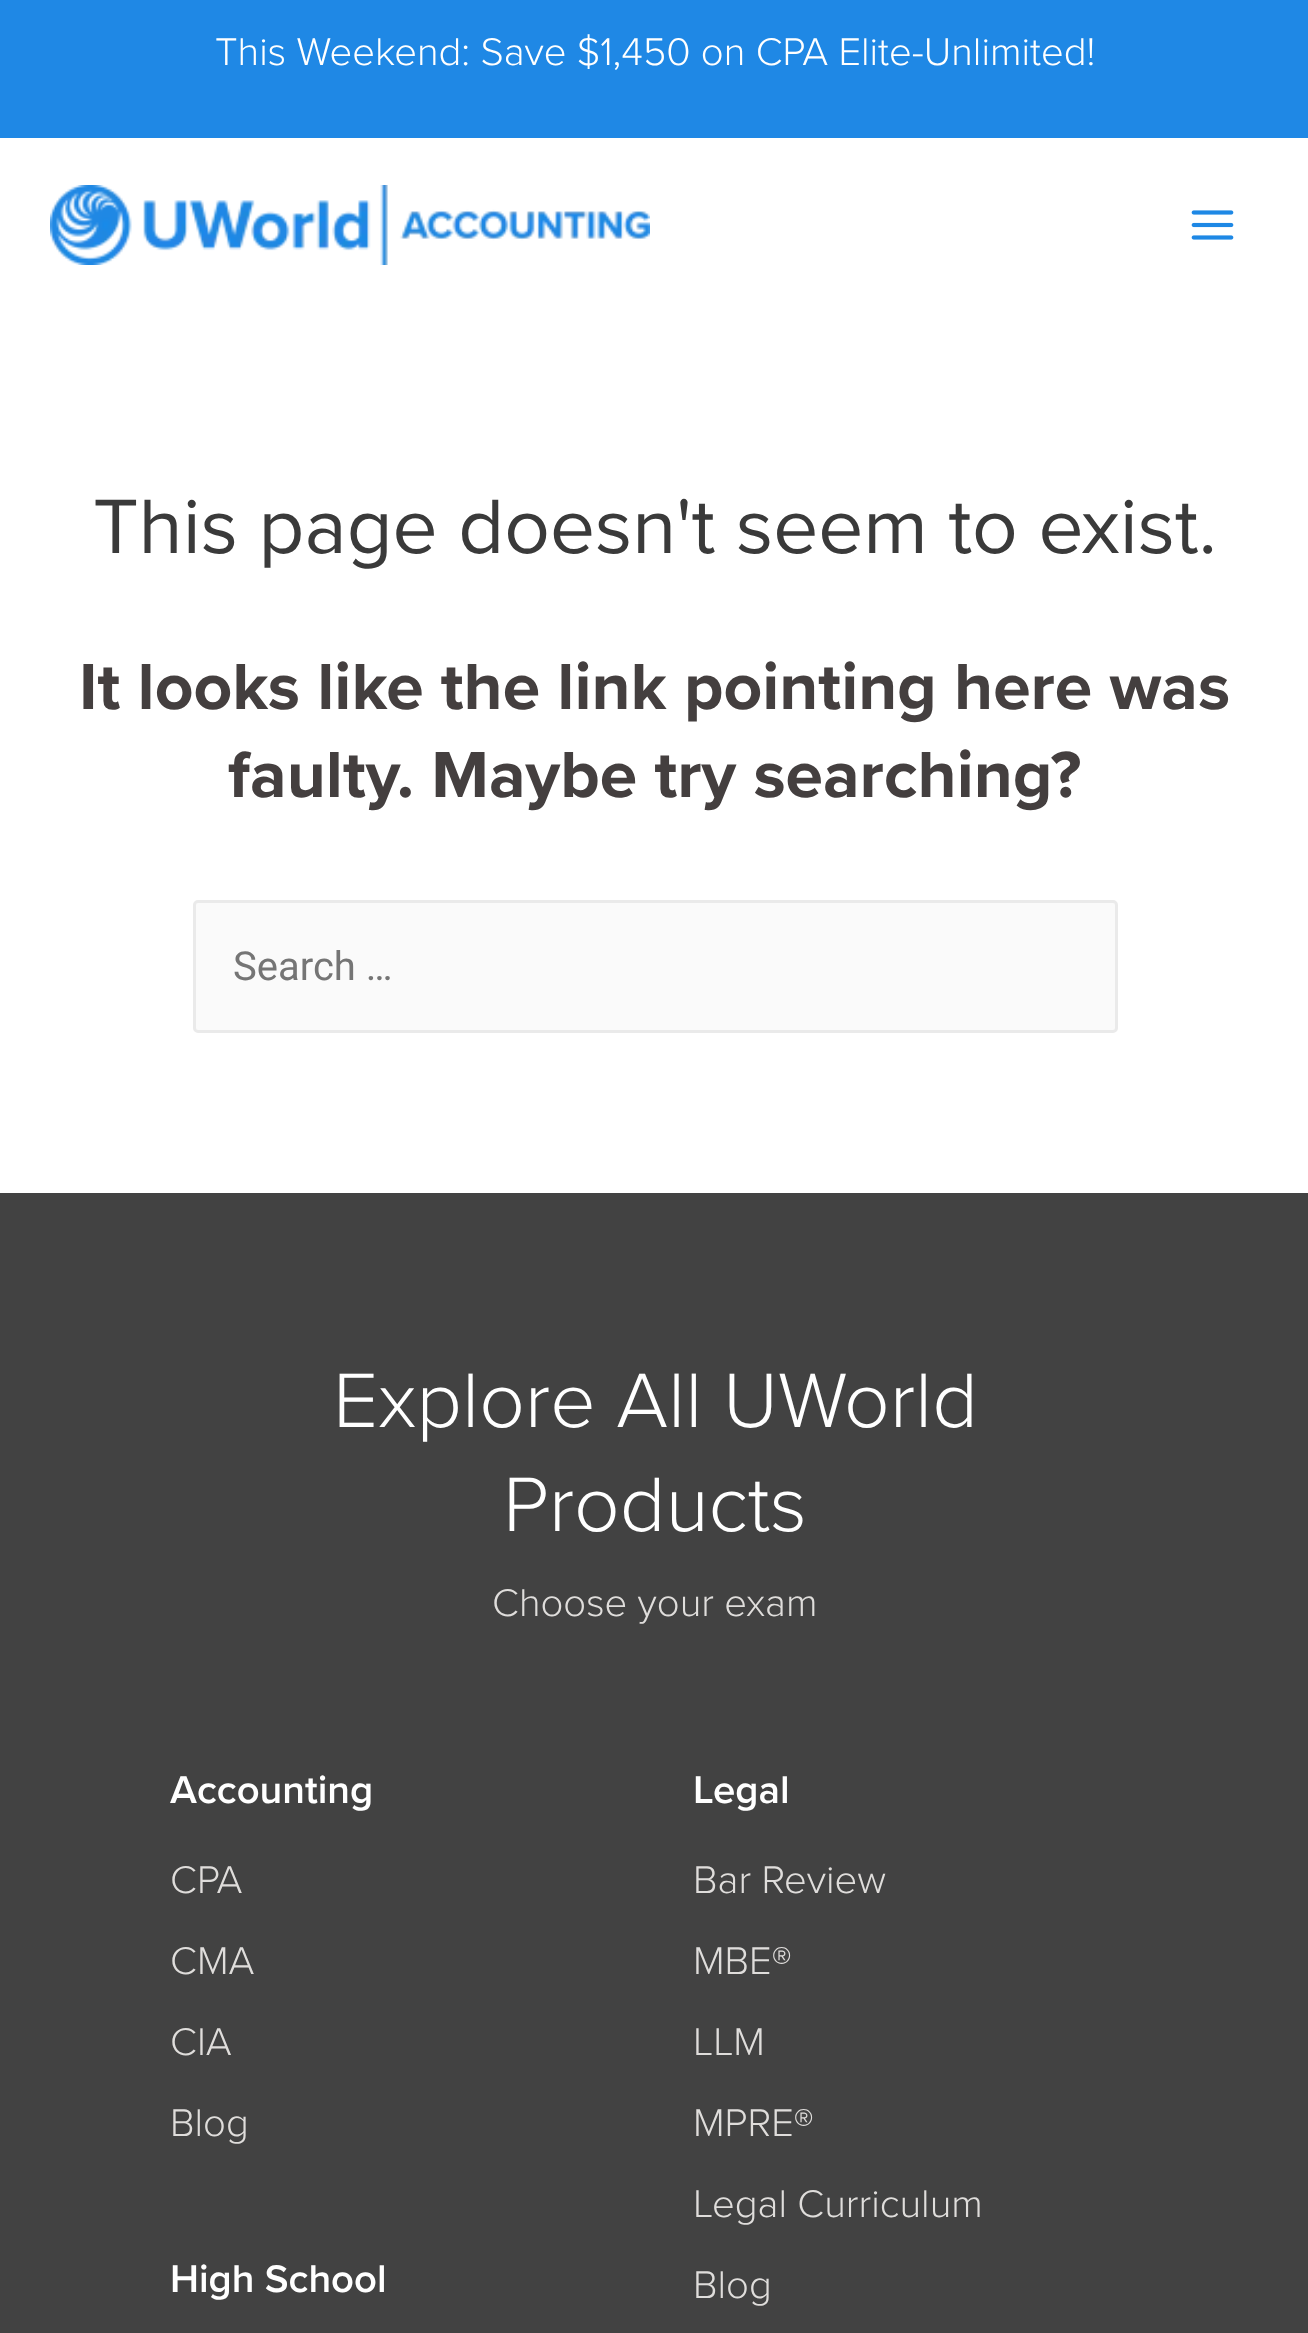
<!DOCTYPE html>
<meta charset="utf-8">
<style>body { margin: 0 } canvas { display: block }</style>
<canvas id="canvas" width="1308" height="2333"></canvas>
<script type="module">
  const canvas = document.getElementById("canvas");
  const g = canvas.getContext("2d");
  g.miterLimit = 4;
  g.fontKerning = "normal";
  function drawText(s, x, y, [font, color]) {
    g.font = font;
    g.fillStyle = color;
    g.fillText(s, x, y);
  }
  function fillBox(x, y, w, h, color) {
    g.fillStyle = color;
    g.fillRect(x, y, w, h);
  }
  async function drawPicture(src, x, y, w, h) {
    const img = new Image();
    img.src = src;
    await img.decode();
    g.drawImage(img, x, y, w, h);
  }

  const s1 = ["300 40px Proxima Nova", "#FFFFFF"];
  const s2 = ["80px Proxima Nova", "#3A3A3A"];
  const s3 = ["bold 67.5px Proxima Nova", "#443F3F"];
  const s4 = ["40px Roboto", "#757575"];
  const s5 = ["300 80px Proxima Nova", "#FFFFFF"];
  const s6 = ["300 40px Proxima Nova", "#DFDDDB"];
  const s7 = ["600 40px Proxima Nova", "#FFFFFF"];

  fillBox(0, 0, 1308, 2333, "#FFFFFF");
  fillBox(0, 0, 1308, 138, "#1F88E5");
  drawText("This Weekend: Save $1,450 on CPA Elite-Unlimited!", 215, 65, s1);
  await drawPicture("pic1.png", 50, 185, 600, 80);
  await drawPicture("pic2.png", 1191, 210, 43, 30);
  drawText("This page doesn't seem to exist.", 93, 553, s2);
  drawText("It looks like the link pointing here was", 79, 709, s3);
  drawText("faulty. Maybe try searching?", 228, 797, s3);
  g.fillStyle = "#FAFAFA";
  g.beginPath();
  g.roundRect(194.5, 901.5, 922, 130, 3.5);
  g.fill();
  g.strokeStyle = "#EAEAEA";
  g.lineWidth = 3;
  g.stroke();
  drawText("Search …", 233, 980, s4);
  fillBox(0, 1193, 1308, 1140, "#424242");
  drawText("Explore All UWorld", 333, 1427, s5);
  drawText("Products", 503, 1531, s5);
  drawText("Choose your exam", 492, 1616, s6);
  drawText("Accounting", 170, 1803, s7);
  drawText("CPA", 170, 1893, s6);
  drawText("CMA", 170, 1974, s6);
  drawText("CIA", 170, 2055, s6);
  drawText("Blog", 170, 2136, s6);
  drawText("High School", 170, 2292, s7);
  drawText("Legal", 693, 1803, s7);
  drawText("Bar Review", 693, 1893, s6);
  drawText("MBE®", 693, 1974, s6);
  drawText("LLM", 693, 2055, s6);
  drawText("MPRE®", 693, 2136, s6);
  drawText("Legal Curriculum", 693, 2217, s6);
  drawText("Blog", 693, 2298, s6);
</script>
